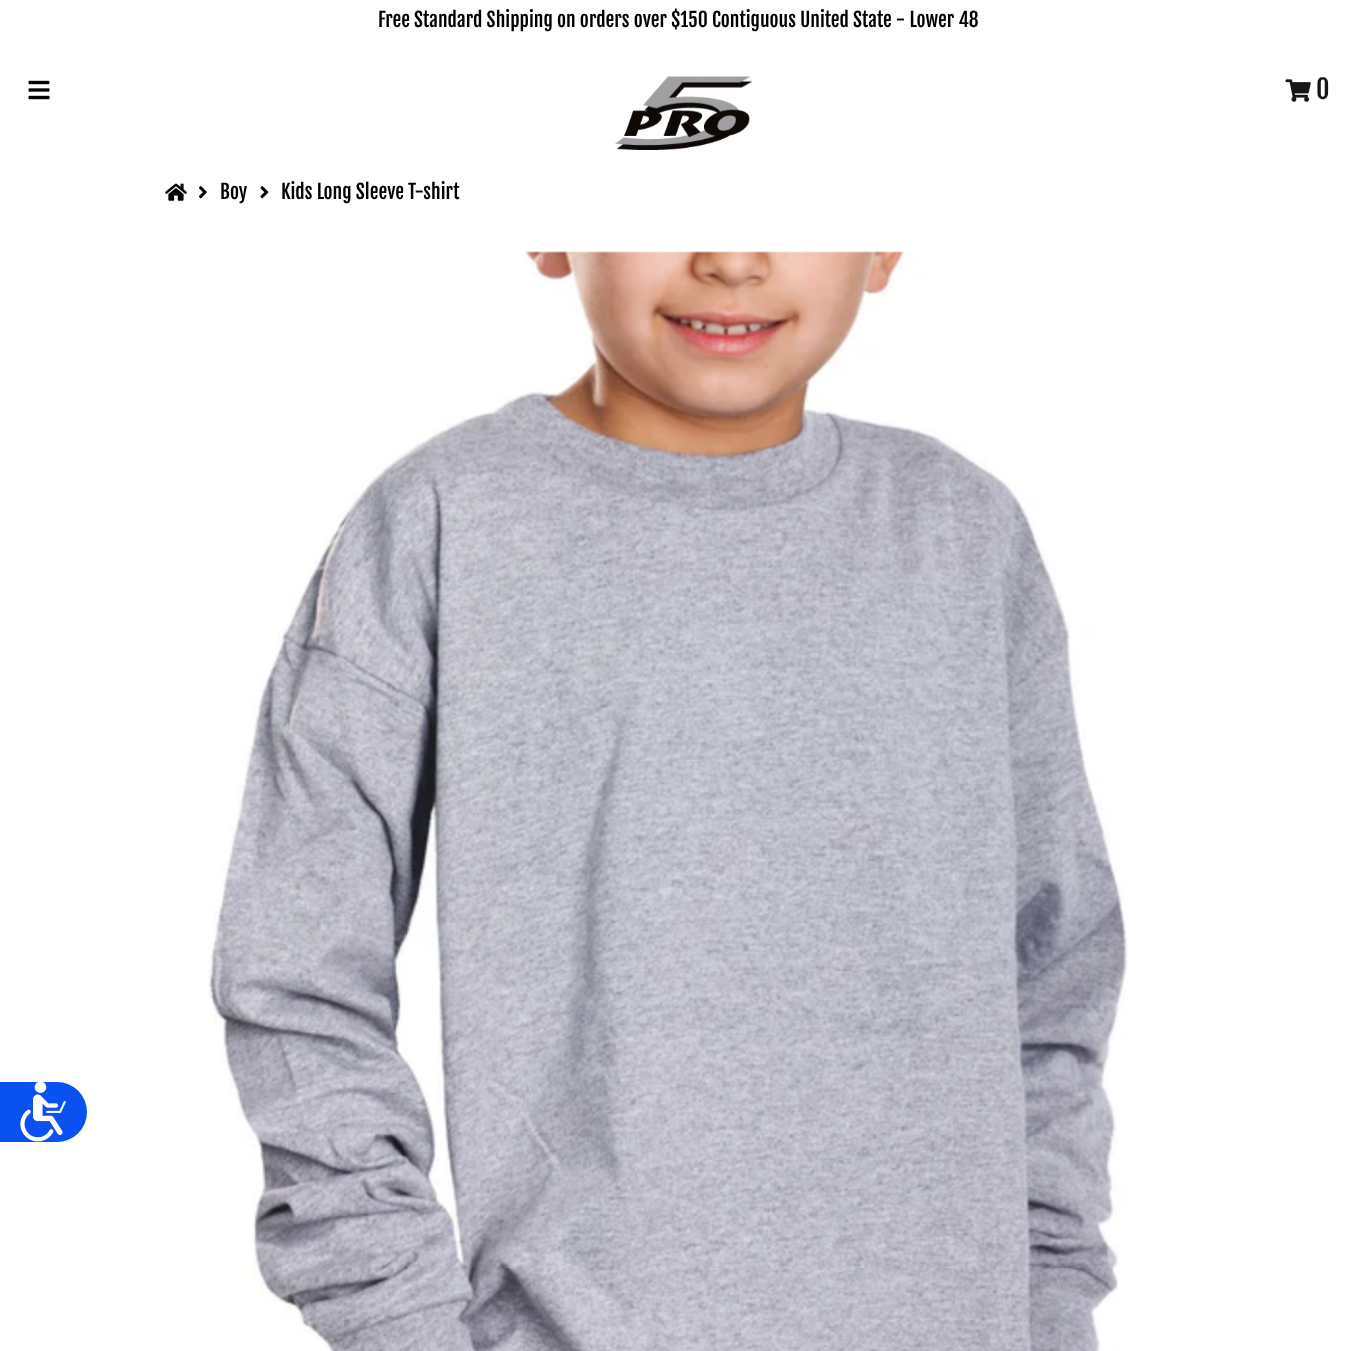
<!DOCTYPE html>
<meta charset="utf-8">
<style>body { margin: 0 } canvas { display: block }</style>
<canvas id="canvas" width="1357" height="1351"></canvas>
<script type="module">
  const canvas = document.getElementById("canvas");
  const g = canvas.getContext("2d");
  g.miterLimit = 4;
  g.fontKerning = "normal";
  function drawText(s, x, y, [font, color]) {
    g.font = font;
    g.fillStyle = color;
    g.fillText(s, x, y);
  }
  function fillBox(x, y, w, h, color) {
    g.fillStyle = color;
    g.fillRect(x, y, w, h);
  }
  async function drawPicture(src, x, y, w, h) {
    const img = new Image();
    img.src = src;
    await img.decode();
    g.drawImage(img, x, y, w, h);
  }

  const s1 = ["19.5px Fjalla One", "#000000"];
  const s2 = ["26px Fjalla One", "#161616"];

  fillBox(0, 0, 1357, 1351, "#FFFFFF");
  drawText("Free Standard Shipping on orders over $150 Contiguous United State - Lower 48", 378, 27, s1);
  await drawPicture("pic1.png", 28, 80, 22, 20);
  await drawPicture("pic2.png", 615, 76, 137, 74);
  await drawPicture("pic3.png", 1285, 79, 26, 23);
  drawText("0", 1316, 99, s2);
  await drawPicture("pic4.png", 165, 183, 22, 18);
  await drawPicture("pic5.png", 199, 186, 8, 13);
  drawText("Boy", 220, 199, s1);
  await drawPicture("pic6.png", 260, 186, 9, 13);
  drawText("Kids Long Sleeve T-shirt", 281, 199, s1);
  await drawPicture("pic7.png", 207, 251, 921, 1100);
  g.fillStyle = "#0A51F2";
  g.beginPath();
  g.roundRect(0, 1082, 87, 60, [0, 30, 30, 0]);
  g.fill();
  await drawPicture("pic8.png", 20, 1082, 46, 60);
</script>
